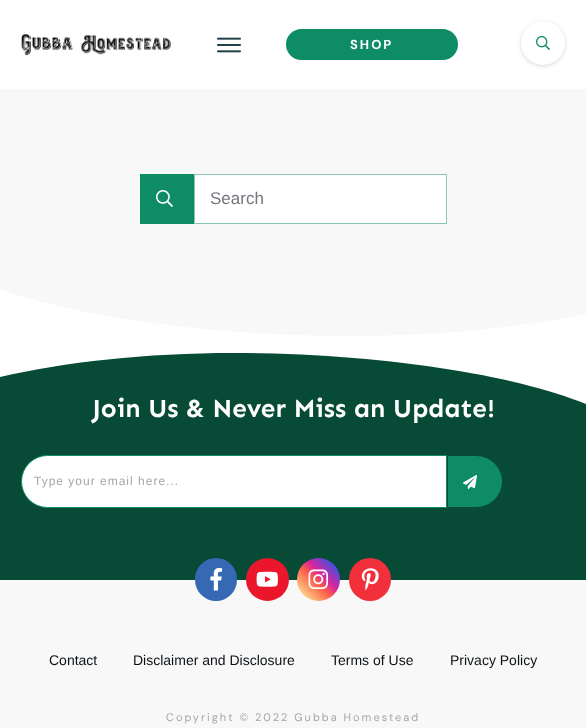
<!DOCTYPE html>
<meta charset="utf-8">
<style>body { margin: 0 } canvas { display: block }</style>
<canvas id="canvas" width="586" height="728"></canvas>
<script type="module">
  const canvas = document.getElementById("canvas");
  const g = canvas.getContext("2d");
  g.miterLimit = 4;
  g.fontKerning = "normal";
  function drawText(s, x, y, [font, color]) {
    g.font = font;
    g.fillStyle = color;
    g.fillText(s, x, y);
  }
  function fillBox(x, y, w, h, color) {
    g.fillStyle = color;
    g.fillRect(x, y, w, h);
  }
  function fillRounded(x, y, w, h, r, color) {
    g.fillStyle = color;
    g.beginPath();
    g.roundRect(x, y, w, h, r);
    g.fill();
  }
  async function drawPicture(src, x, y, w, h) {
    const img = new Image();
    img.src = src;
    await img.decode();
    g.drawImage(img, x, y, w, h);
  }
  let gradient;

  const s1 = ["bold 13px DM Sans", "#FFFFFF"];
  const s2 = ["17px Liberation Sans", "#73787F"];
  const s3 = ["bold 26px Sen", "#FFFFFF"];
  const s4 = ["12px Liberation Sans", "#A6A6A6"];
  const s5 = ["14px Liberation Sans", "#0C1115"];
  const s6 = ["11px DM Sans", "#A6A6A6"];

  fillBox(0, 0, 586, 728, "#FFFFFF");
  await drawPicture("pic1.png", 21, 34, 151, 22);
  await drawPicture("pic2.png", 217, 37, 24, 16);
  fillRounded(286, 29, 172, 31, 15.5, "#0D8C66");
  g.letterSpacing = "2px";
  drawText("SHOP", 350, 49, s1);
  g.fillStyle = "rgba(0, 0, 0, 0.15)";
  g.filter = "blur(2px)";
  g.beginPath();
  g.roundRect(521, 22, 44, 44, 22);
  g.fill();
  g.filter = "none";
  g.fillStyle = "#FFFFFF";
  g.beginPath();
  g.arc(543, 43, 22, 0, Math.PI * 2);
  g.fill();
  await drawPicture("pic3.png", 536, 36, 14, 14);
  fillBox(0, 89, 586, 247, "#F8F8F8");
  g.fillStyle = "#FFFFFF";
  g.beginPath();
  g.moveTo(586, 344);
  g.lineTo(586, 314);
  g.bezierCurveTo(521, 327, 441, 336, 353, 336);
  g.bezierCurveTo(205, 336, 71, 315, 0, 289);
  g.lineTo(0, 344);
  g.closePath();
  g.fill();
  fillBox(140, 174, 54, 50, "#0D8C66");
  await drawPicture("pic4.png", 156, 190, 17, 17);
  g.fillStyle = "#FFFFFF";
  g.beginPath();
  g.rect(194.5, 174.5, 252, 49);
  g.fill();
  g.strokeStyle = "#86C6B3";
  g.stroke();
  g.letterSpacing = "0px";
  drawText("Search", 210, 204, s2);
  fillBox(0, 353, 586, 227, "#074B37");
  g.fillStyle = "#FFFFFF";
  g.beginPath();
  g.moveTo(0, 344);
  g.lineTo(0, 377);
  g.bezierCurveTo(65, 362, 145, 353, 233, 353);
  g.bezierCurveTo(381, 353, 515, 375, 586, 404);
  g.lineTo(586, 344);
  g.closePath();
  g.fill();
  drawText("Join Us & Never Miss an Update!", 92, 417, s3);
  g.beginPath();
  g.roundRect(21.5, 455.5, 425, 52, [26, 0, 0, 26]);
  g.fill();
  g.strokeStyle = "#0D8C66";
  g.stroke();
  g.letterSpacing = "1px";
  drawText("Type your email here...", 34, 485, s4);
  g.fillStyle = "#0D8C66";
  g.beginPath();
  g.roundRect(448, 456, 54, 51, [0, 25.5, 25.5, 0]);
  g.fill();
  await drawPicture("pic5.png", 463, 475, 14, 14);
  fillBox(0, 580, 586, 148, "#F8F8F8");
  fillRounded(195, 558, 42, 43, 21, "#3569B4");
  await drawPicture("pic6.png", 210, 568, 13, 23);
  g.fillStyle = "#EC162C";
  g.beginPath();
  g.arc(267.5, 579.5, 21.5, 0, Math.PI * 2);
  g.fill();
  await drawPicture("pic7.png", 256, 571, 22, 16);
  gradient = g.createLinearGradient(297, 601, 340, 558);
  gradient.addColorStop(0, "#FDF497");
  gradient.addColorStop(0.05, "#FDF497");
  gradient.addColorStop(0.45, "#FD5949");
  gradient.addColorStop(0.6, "#D6249F");
  gradient.addColorStop(0.9, "#285AEB");
  g.fillStyle = gradient;
  g.beginPath();
  g.arc(318.5, 579.5, 21.5, 0, Math.PI * 2);
  g.fill();
  await drawPicture("pic8.png", 308, 569, 21, 20);
  fillRounded(349, 558, 42, 43, 21, "#F2303C");
  await drawPicture("pic9.png", 361, 568, 18, 23);
  g.save();
  g.beginPath();
  g.rect(49, 652, 48, 16);
  g.clip();
  g.letterSpacing = "0px";
  drawText("Contact", 49, 665, s5);
  g.restore();
  g.letterSpacing = "0px";
  drawText("Disclaimer and Disclosure", 133, 665, s5);
  drawText("Terms of Use", 331, 665, s5);
  drawText("Privacy Policy", 450, 665, s5);
  g.letterSpacing = "2px";
  drawText("Copyright © 2022 Gubba Homestead", 166, 721, s6);
</script>
